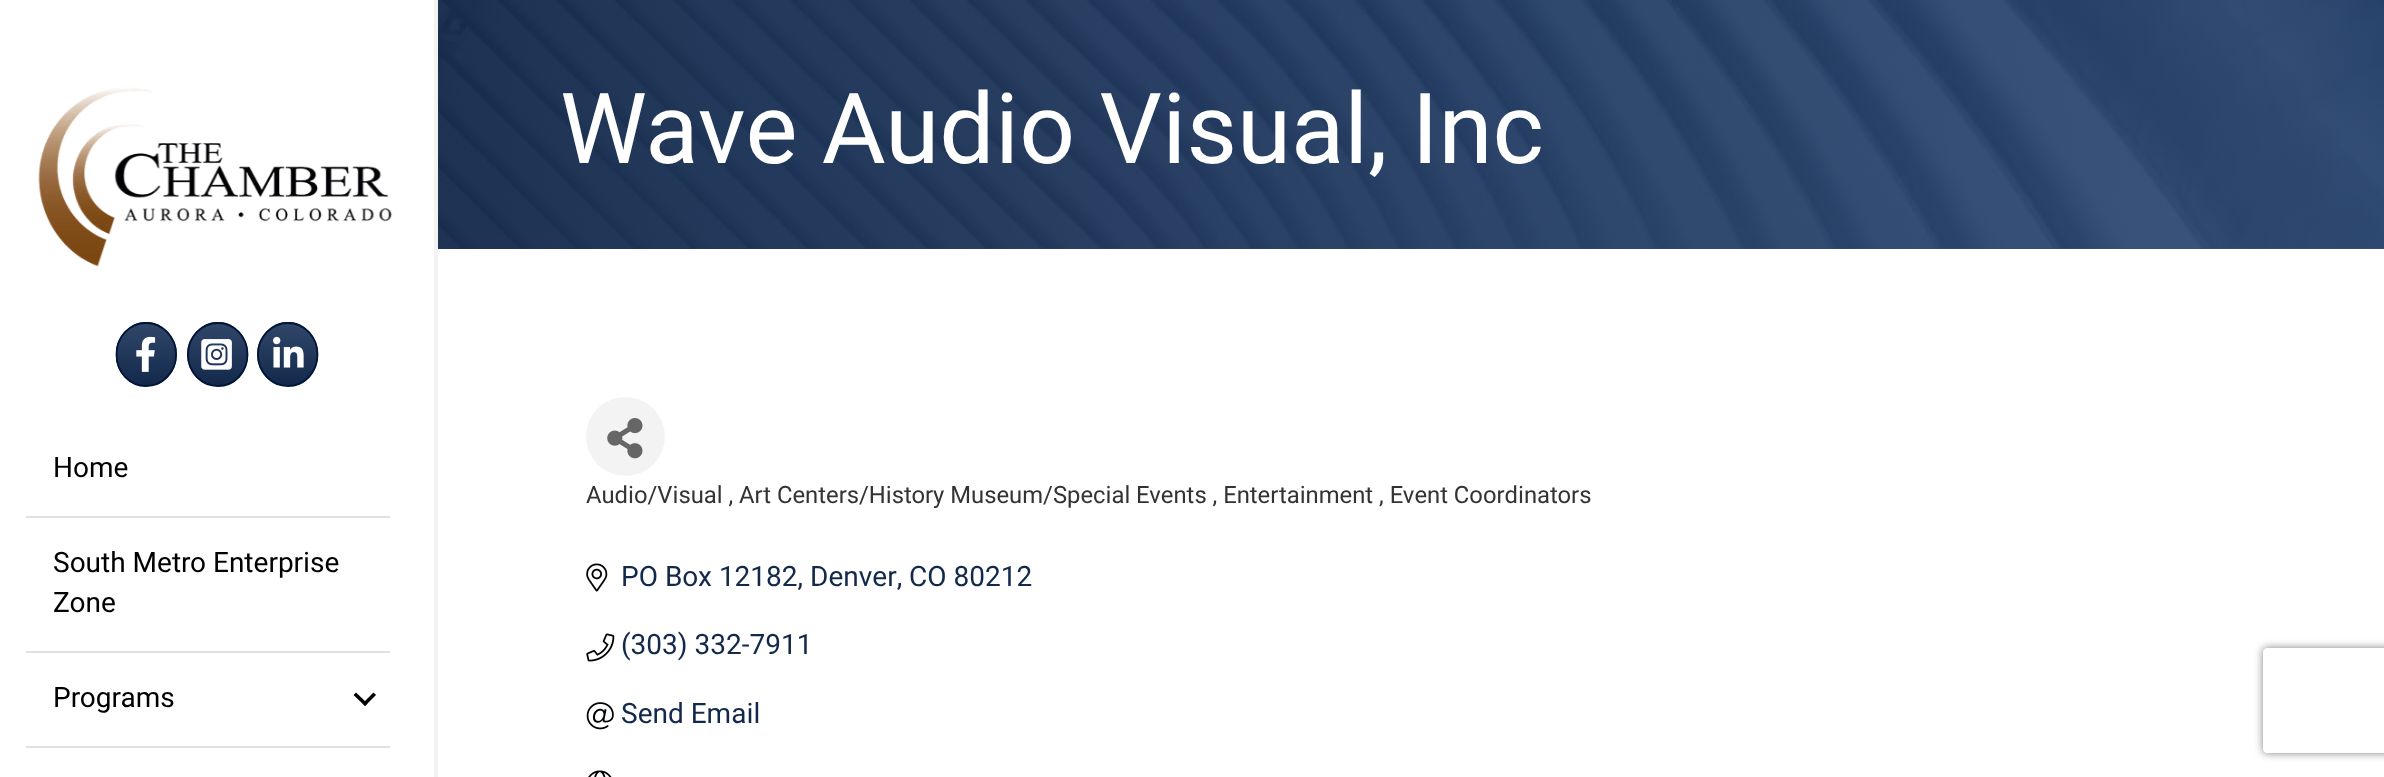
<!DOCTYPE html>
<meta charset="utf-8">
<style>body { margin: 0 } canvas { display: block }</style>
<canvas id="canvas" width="2384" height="777"></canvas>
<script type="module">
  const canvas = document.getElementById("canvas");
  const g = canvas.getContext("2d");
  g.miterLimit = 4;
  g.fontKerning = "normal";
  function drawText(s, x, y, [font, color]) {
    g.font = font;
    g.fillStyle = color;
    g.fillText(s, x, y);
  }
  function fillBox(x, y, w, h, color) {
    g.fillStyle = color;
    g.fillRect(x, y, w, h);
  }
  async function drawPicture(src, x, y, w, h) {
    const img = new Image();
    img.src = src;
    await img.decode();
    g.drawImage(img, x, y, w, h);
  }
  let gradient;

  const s1 = ["28px Heebo", "#000000"];
  const s2 = ["98px Heebo", "#FFFFFF"];
  const s3 = ["23.8px Heebo", "#333333"];
  const s4 = ["28px Heebo", "#13294B"];

  fillBox(0, 0, 2384, 777, "#FFFFFF");
  fillBox(434, 0, 4, 777, "#F3F3F3");
  await drawPicture("pic1.png", 38, 87, 355, 180);
  gradient = g.createLinearGradient(146, 263, 146, 324);
  gradient.addColorStop(0, "#314769");
  gradient.addColorStop(1, "#13294B");
  g.fillStyle = gradient;
  g.beginPath();
  g.moveTo(146, 322);
  g.bezierCurveTo(150, 322, 153.5, 322.5, 156.5, 324);
  g.lineTo(135.5, 324);
  g.bezierCurveTo(139, 322.5, 142.5, 322, 146, 322);
  g.closePath();
  g.fill();
  gradient = g.createLinearGradient(146, 324, 146, 385);
  gradient.addColorStop(0, "#314769");
  gradient.addColorStop(1, "#13294B");
  g.fillStyle = gradient;
  g.beginPath();
  g.moveTo(116, 349);
  g.bezierCurveTo(118, 337, 126, 328, 136, 324);
  g.lineTo(157, 324);
  g.bezierCurveTo(168, 329, 177, 340, 177, 354);
  g.bezierCurveTo(177, 369, 168, 381, 156, 385);
  g.lineTo(136, 385);
  g.bezierCurveTo(126, 381, 118, 372, 116, 360);
  g.closePath();
  g.fill();
  g.beginPath();
  g.moveTo(146, 323);
  g.bezierCurveTo(162.5, 323, 176, 337, 176, 354.5);
  g.bezierCurveTo(176, 372, 162.5, 386, 146, 386);
  g.bezierCurveTo(129.5, 386, 116.5, 372, 116.5, 354.5);
  g.bezierCurveTo(116.5, 337, 129.5, 323, 146, 323);
  g.closePath();
  g.strokeStyle = "#001537";
  g.lineWidth = 1.8;
  g.stroke();
  await drawPicture("pic2.png", 136, 336, 20, 36);
  gradient = g.createLinearGradient(218, 263, 218, 324);
  gradient.addColorStop(0, "#314769");
  gradient.addColorStop(1, "#13294B");
  g.fillStyle = gradient;
  g.beginPath();
  g.moveTo(218, 322);
  g.bezierCurveTo(221.5, 322, 225, 322.5, 228.5, 324);
  g.lineTo(207.5, 324);
  g.bezierCurveTo(210.5, 322.5, 214, 322, 218, 322);
  g.closePath();
  g.fill();
  gradient = g.createLinearGradient(218, 324, 218, 385);
  gradient.addColorStop(0, "#314769");
  gradient.addColorStop(1, "#13294B");
  g.fillStyle = gradient;
  g.beginPath();
  g.moveTo(208, 385);
  g.bezierCurveTo(196, 381, 187, 369, 187, 354);
  g.bezierCurveTo(187, 340, 196, 329, 207, 324);
  g.lineTo(228, 324);
  g.bezierCurveTo(240, 329, 248, 340, 248, 354);
  g.bezierCurveTo(248, 369, 240, 381, 228, 385);
  g.closePath();
  g.fill();
  g.beginPath();
  g.moveTo(218, 323);
  g.bezierCurveTo(234.5, 323, 247.5, 337, 247.5, 354.5);
  g.bezierCurveTo(247.5, 372, 234.5, 386, 218, 386);
  g.bezierCurveTo(201.5, 386, 188, 372, 188, 354.5);
  g.bezierCurveTo(188, 337, 201.5, 323, 218, 323);
  g.closePath();
  g.stroke();
  await drawPicture("pic3.png", 201, 339, 31, 31);
  gradient = g.createLinearGradient(288, 263, 288, 324);
  gradient.addColorStop(0, "#314769");
  gradient.addColorStop(1, "#13294B");
  g.fillStyle = gradient;
  g.beginPath();
  g.moveTo(288, 322);
  g.bezierCurveTo(291.5, 322, 295, 322.5, 298.5, 324);
  g.lineTo(277.5, 324);
  g.bezierCurveTo(280.5, 322.5, 284, 322, 288, 322);
  g.closePath();
  g.fill();
  gradient = g.createLinearGradient(288, 324, 288, 385);
  gradient.addColorStop(0, "#314769");
  gradient.addColorStop(1, "#13294B");
  g.fillStyle = gradient;
  g.beginPath();
  g.moveTo(278, 385);
  g.bezierCurveTo(266, 381, 257, 369, 257, 354);
  g.bezierCurveTo(257, 340, 266, 329, 277, 324);
  g.lineTo(298, 324);
  g.bezierCurveTo(310, 329, 318, 340, 318, 354);
  g.bezierCurveTo(318, 369, 310, 381, 298, 385);
  g.closePath();
  g.fill();
  g.beginPath();
  g.moveTo(288, 323);
  g.bezierCurveTo(304.5, 323, 317.5, 337, 317.5, 354.5);
  g.bezierCurveTo(317.5, 372, 304.5, 386, 288, 386);
  g.bezierCurveTo(271.5, 386, 258, 372, 258, 354.5);
  g.bezierCurveTo(258, 337, 271.5, 323, 288, 323);
  g.closePath();
  g.stroke();
  await drawPicture("pic4.png", 273, 336, 31, 32);
  drawText("Home", 53, 477, s1);
  fillBox(26, 516, 364, 2, "#E0E0E0");
  drawText("South Metro Enterprise", 53, 572, s1);
  drawText("Zone", 53, 612, s1);
  fillBox(26, 651, 364, 2, "#E0E0E0");
  drawText("Programs", 53, 707, s1);
  g.beginPath();
  g.moveTo(373.5, 692.5);
  g.lineTo(376, 695);
  g.lineTo(365, 706);
  g.lineTo(362.5, 703.5);
  g.closePath();
  g.fill();
  g.beginPath();
  g.moveTo(356, 692.5);
  g.lineTo(367.5, 703.5);
  g.lineTo(365, 706);
  g.lineTo(353.5, 695);
  g.closePath();
  g.fill();
  fillBox(26, 746, 364, 2, "#E0E0E0");
  await drawPicture("pic5.png", 438, 0, 1946, 249);
  gradient = g.createLinearGradient(438, 124, 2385, 124);
  gradient.addColorStop(0, "rgba(19, 41, 75, 0.95)");
  gradient.addColorStop(1, "rgba(11, 44, 94, 0.8)");
  g.fillStyle = gradient;
  g.fillRect(438, 0, 1946, 249);
  drawText("Wave Audio Visual, Inc", 560, 163, s2);
  g.fillStyle = "#F3F3F3";
  g.beginPath();
  g.arc(625.5, 436.5, 39.5, 0, Math.PI * 2);
  g.fill();
  await drawPicture("pic6.png", 607, 418, 36, 41);
  drawText("Audio/Visual , Art Centers/History Museum/Special Events , Entertainment , Event Coordinators", 586, 503, s3);
  await drawPicture("pic7.png", 586, 563, 22, 29);
  drawText("PO Box 12182, Denver, CO 80212", 621, 586, s4);
  await drawPicture("pic8.png", 586, 633, 29, 29);
  drawText("(303) 332-7911", 621, 654, s4);
  await drawPicture("pic9.png", 586, 702, 28, 28);
  drawText("Send Email", 621, 723, s4);
  await drawPicture("pic10.png", 588, 770, 24, 7);
  g.save();
  g.beginPath();
  g.moveTo(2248, 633);
  g.lineTo(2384, 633);
  g.lineTo(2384, 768);
  g.lineTo(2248, 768);
  g.closePath();
  g.moveTo(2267, 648);
  g.lineTo(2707, 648);
  g.bezierCurveTo(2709, 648, 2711, 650, 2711, 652);
  g.lineTo(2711, 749);
  g.bezierCurveTo(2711, 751, 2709, 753, 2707, 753);
  g.lineTo(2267, 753);
  g.bezierCurveTo(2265, 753, 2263, 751, 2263, 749);
  g.lineTo(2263, 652);
  g.bezierCurveTo(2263, 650, 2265, 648, 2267, 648);
  g.closePath();
  g.clip("evenodd");
  g.fillStyle = "#808080";
  g.filter = "blur(4.5px)";
  g.beginPath();
  g.roundRect(2263, 648, 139, 105, 4);
  g.fill();
  g.filter = "none";
  g.restore();
</script>
